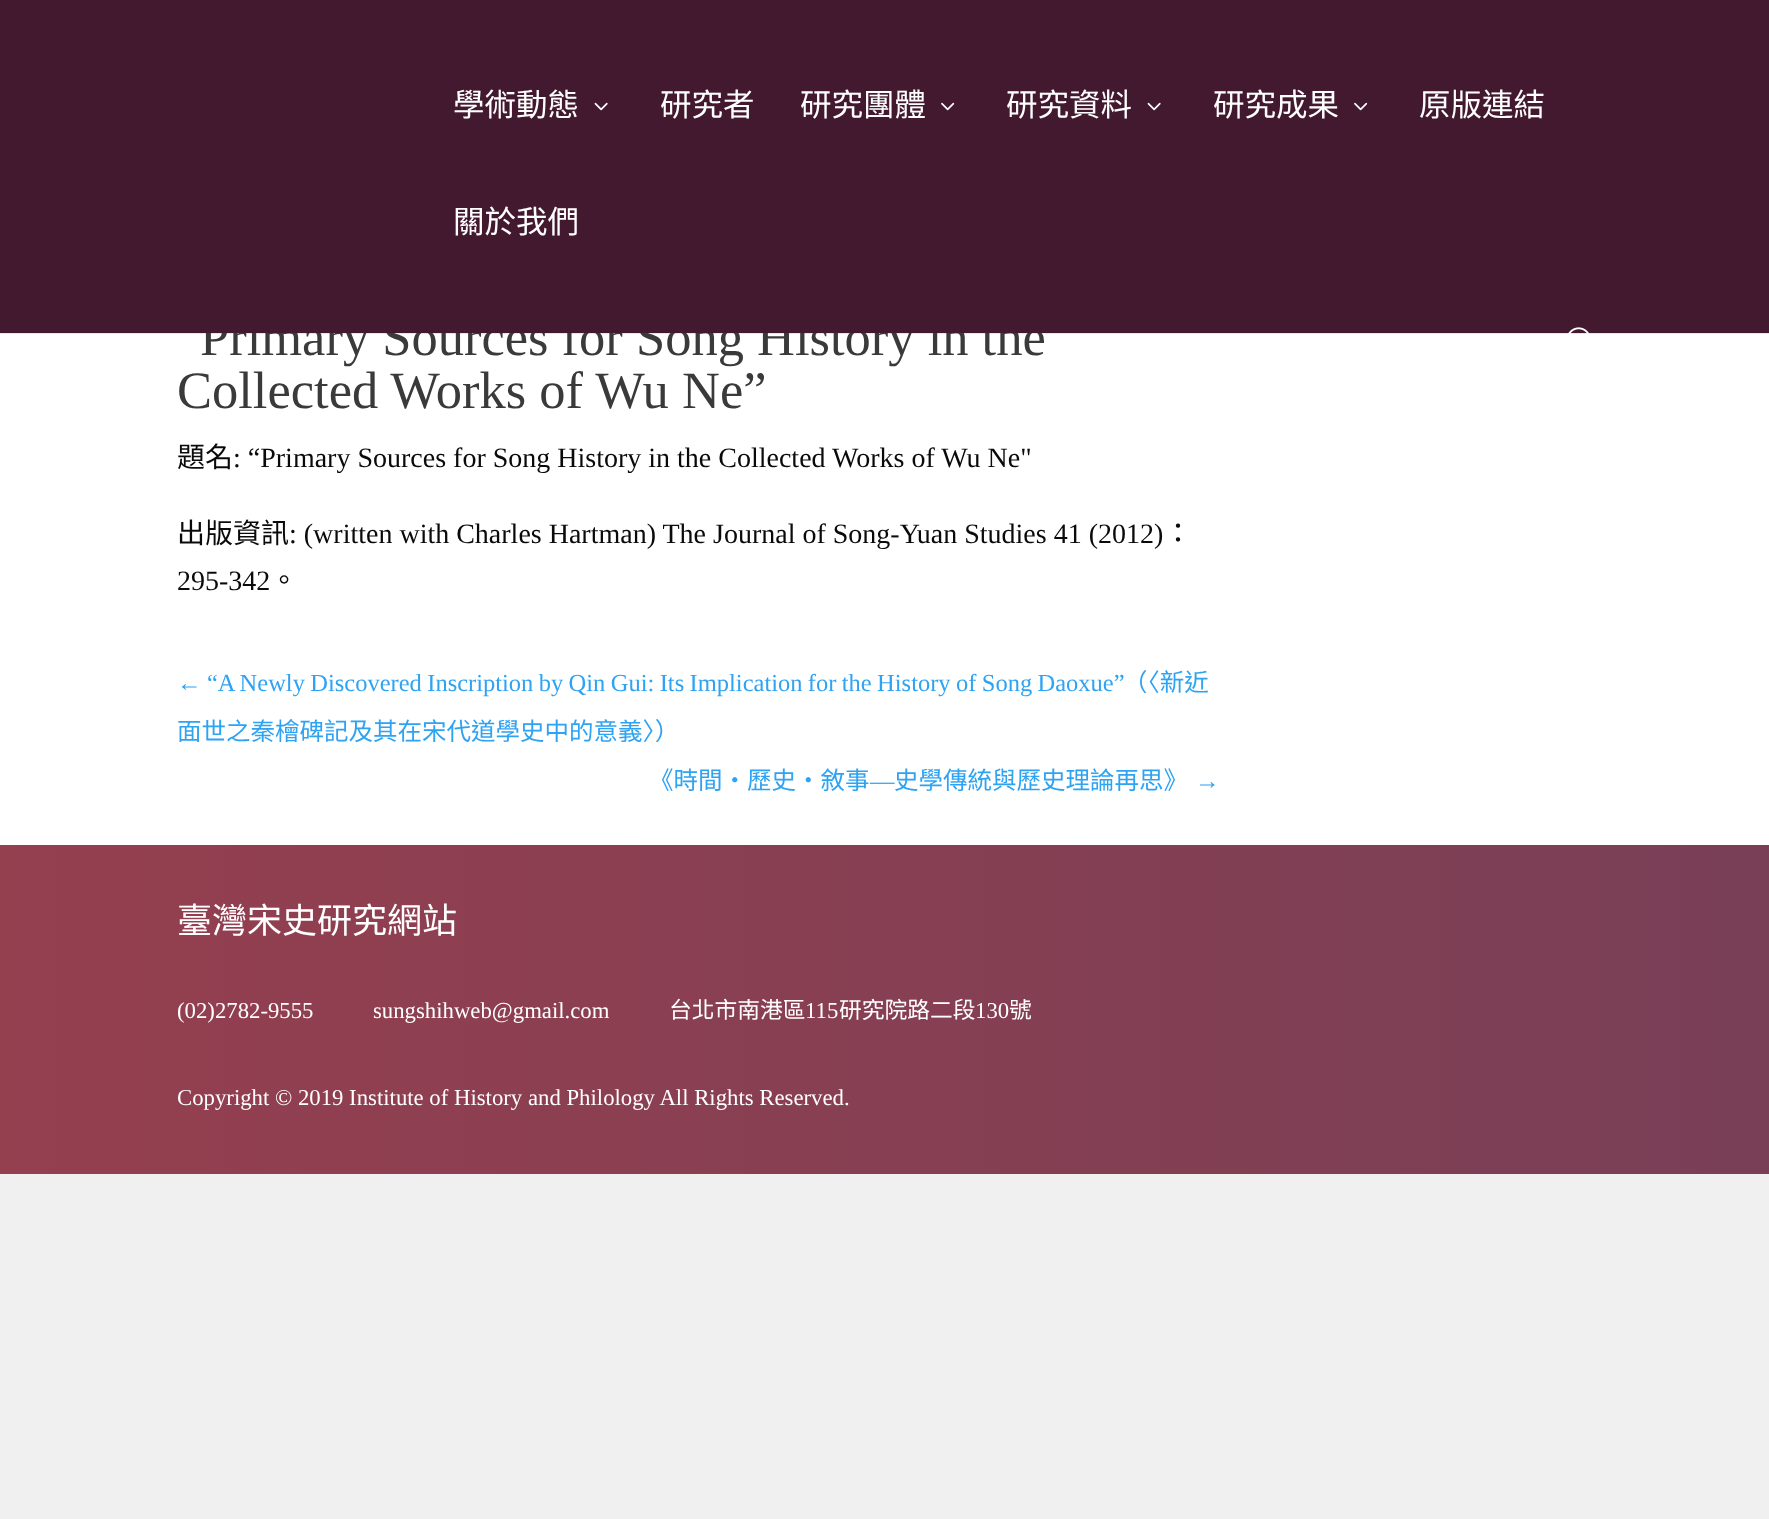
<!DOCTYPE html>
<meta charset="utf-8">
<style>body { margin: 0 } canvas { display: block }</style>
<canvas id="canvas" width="1769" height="1519"></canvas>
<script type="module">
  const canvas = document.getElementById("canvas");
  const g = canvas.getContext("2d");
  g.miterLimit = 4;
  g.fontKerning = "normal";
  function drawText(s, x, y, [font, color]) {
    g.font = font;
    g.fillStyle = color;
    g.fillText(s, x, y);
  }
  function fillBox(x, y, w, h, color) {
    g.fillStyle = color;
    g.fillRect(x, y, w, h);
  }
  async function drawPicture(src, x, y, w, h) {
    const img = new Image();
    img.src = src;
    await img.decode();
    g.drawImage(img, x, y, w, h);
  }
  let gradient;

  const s1 = ["52.5px Liberation Serif", "#3A3A3A"];
  const s2 = ["31.5px Noto Sans CJK TC", "#FFFFFF"];
  const s3 = ["28px Noto Sans CJK TC", "#0A0A0A"];
  const s4 = ["28px Liberation Serif", "#0A0A0A"];
  const s5 = ["24.5px Liberation Serif", "#2EA3F2"];
  const s6 = ["24.5px Noto Sans CJK TC", "#2EA3F2"];
  const s7 = ["35px Noto Sans CJK TC", "#FFFFFF"];
  const s8 = ["22.75px Liberation Serif", "#FFFFFF"];
  const s9 = ["22.75px Noto Sans CJK TC", "#FFFFFF"];

  fillBox(0, 0, 1769, 1519, "#F0F0F0");
  fillBox(0, 333, 1769, 512, "#FFFFFF");
  fillBox(0, 333, 1769, 1, "rgba(0, 0, 0, 0.1)");
  drawText("Primary Sources for Song History in the", 200, 355, s1);
  fillBox(0, 0, 1769, 333, "#42192F");
  drawText("學術動態", 453, 116, s2);
  await drawPicture("pic1.png", 594, 102, 14, 9);
  drawText("研究者", 660, 116, s2);
  drawText("研究團體", 800, 116, s2);
  await drawPicture("pic2.png", 941, 102, 14, 9);
  drawText("研究資料", 1006, 116, s2);
  await drawPicture("pic1.png", 1147, 102, 14, 9);
  drawText("研究成果", 1213, 116, s2);
  await drawPicture("pic2.png", 1354, 102, 14, 9);
  drawText("原版連結", 1419, 116, s2);
  drawText("關於我們", 453, 233, s2);
  await drawPicture("pic3.png", 1568, 327, 21, 7);
  drawText("Collected Works of Wu Ne”", 177, 408, s1);
  drawText("題名", 177, 467, s3);
  drawText(": “Primary Sources for Song History in the Collected Works of Wu Ne\"", 233, 467, s4);
  drawText("出版資訊", 177, 543, s3);
  drawText(": (written with Charles Hartman) The Journal of Song-Yuan Studies 41 (2012)", 289, 543, s4);
  drawText("：", 1164, 543, s3);
  drawText("295-342", 177, 590, s4);
  drawText("。", 270, 590, s3);
  drawText("←", 177, 691, s5);
  g.wordSpacing = "-0.75px";
  drawText("“A Newly Discovered Inscription by Qin Gui: Its Implication for the History of Song Daoxue”", 207, 691, s5);
  g.wordSpacing = "0px";
  drawText("（〈新近", 1123, 691, s6);
  drawText("面世之秦檜碑記及其在宋代道學史中的意義〉）", 177, 740, s6);
  drawText("《時間‧歷史‧敘事", 649, 789, s6);
  drawText("—", 870, 789, s5);
  drawText("史學傳統與歷史理論再思》", 894, 789, s6);
  drawText("→", 1195, 789, s5);
  gradient = g.createLinearGradient(0, 1010, 1769, 1010);
  gradient.addColorStop(0, "#953F4F");
  gradient.addColorStop(1, "#793F57");
  g.fillStyle = gradient;
  g.fillRect(0, 845, 1769, 329);
  drawText("臺灣宋史研究網站", 177, 933, s7);
  drawText("(02)2782-9555", 177, 1018, s8);
  drawText("sungshihweb@gmail.com", 373, 1018, s8);
  drawText("台北市南港區", 669, 1018, s9);
  drawText("115", 805, 1018, s8);
  drawText("研究院路二段", 839, 1018, s9);
  drawText("130", 975, 1018, s8);
  drawText("號", 1009, 1018, s9);
  drawText("Copyright © 2019 Institute of History and Philology All Rights Reserved.", 177, 1105, s8);
</script>
